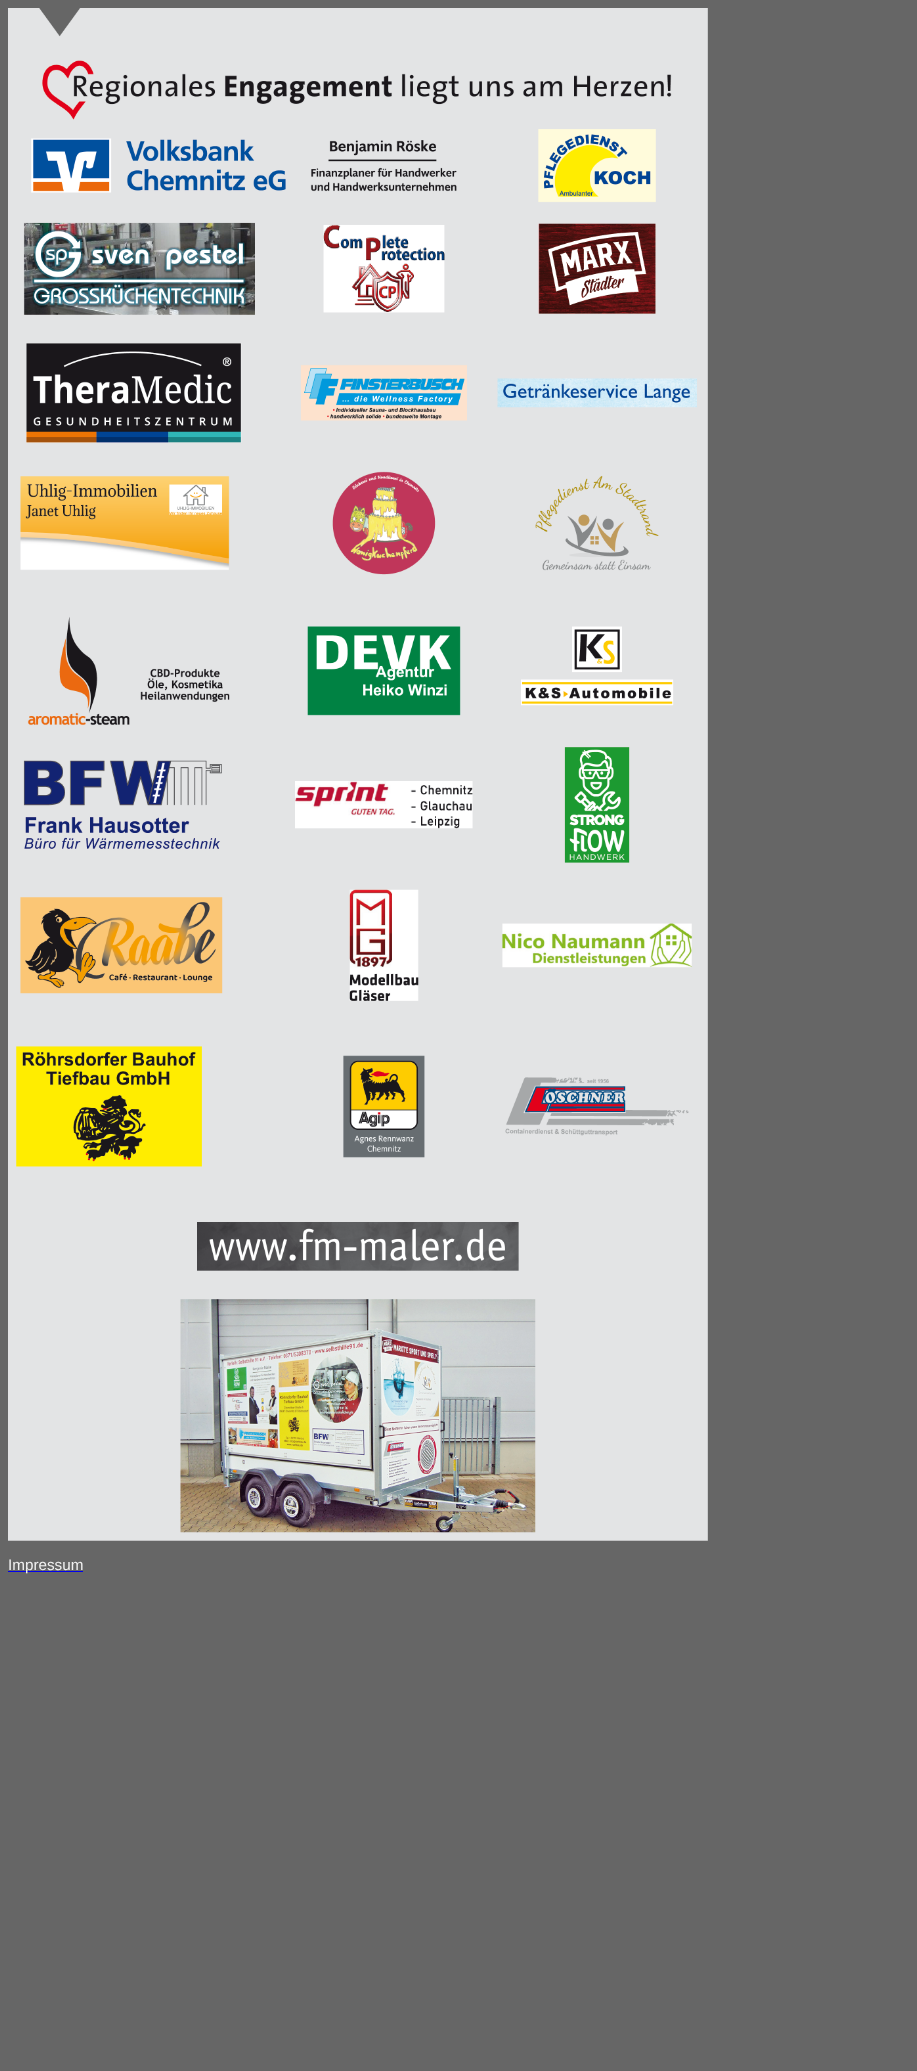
<!DOCTYPE html>
<meta charset="utf-8">
<style>body { margin: 0 } canvas { display: block }</style>
<canvas id="canvas" width="917" height="2071"></canvas>
<script type="module">
  const canvas = document.getElementById("canvas");
  const g = canvas.getContext("2d");
  g.miterLimit = 4;
  g.fontKerning = "normal";
  function drawText(s, x, y, [font, color]) {
    g.font = font;
    g.fillStyle = color;
    g.fillText(s, x, y);
  }
  function fillBox(x, y, w, h, color) {
    g.fillStyle = color;
    g.fillRect(x, y, w, h);
  }
  async function drawPicture(src, x, y, w, h) {
    const img = new Image();
    img.src = src;
    await img.decode();
    g.drawImage(img, x, y, w, h);
  }

  const s1 = ["15.25px Liberation Sans", "#F1F1F1"];

  fillBox(0, 0, 917, 2071, "#666666");
  await drawPicture("pic1.png", 8, 8, 700, 1533);
  fillBox(8, 1571, 75, 1, "#0000EE");
  drawText("Impressum", 8, 1570, s1);
</script>
